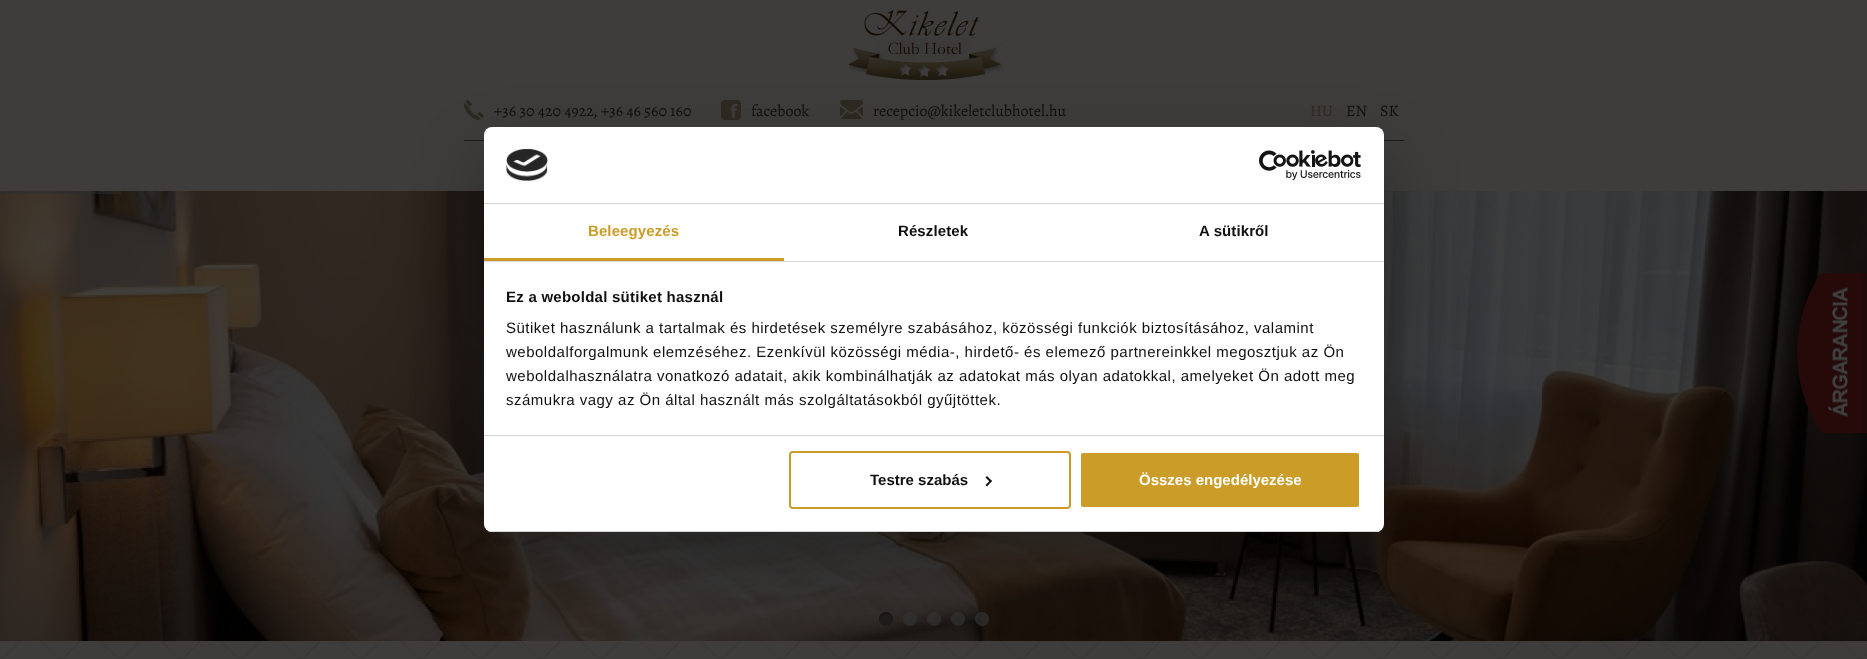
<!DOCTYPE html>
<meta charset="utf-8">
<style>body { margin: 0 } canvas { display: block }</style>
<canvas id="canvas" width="1867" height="659"></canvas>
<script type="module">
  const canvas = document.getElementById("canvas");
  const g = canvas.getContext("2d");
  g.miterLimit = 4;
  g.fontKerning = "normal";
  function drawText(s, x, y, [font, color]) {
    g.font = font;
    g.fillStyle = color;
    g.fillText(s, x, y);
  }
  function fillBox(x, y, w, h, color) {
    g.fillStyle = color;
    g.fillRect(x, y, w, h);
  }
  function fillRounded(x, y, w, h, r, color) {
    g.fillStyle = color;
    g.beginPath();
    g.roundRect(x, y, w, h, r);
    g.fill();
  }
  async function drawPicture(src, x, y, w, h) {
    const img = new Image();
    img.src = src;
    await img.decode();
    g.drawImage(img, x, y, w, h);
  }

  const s1 = ["16px Alegreya", "#101010"];
  const s2 = ["16px Alegreya", "#000000"];
  const s3 = ["16px Alegreya", "#2F2B21"];
  const s4 = ["bold 15px Liberation Sans", "#CB9C28"];
  const s5 = ["bold 15px Liberation Sans", "#101010"];
  const s6 = ["15px Liberation Sans", "#101010"];
  const s7 = ["bold 15px Liberation Sans", "#FFFFFF"];

  fillBox(0, 0, 1867, 659, "#3E3D3C");
  await drawPicture("pic1.png", 0, 641, 1867, 18);
  fillBox(464, 140, 940, 1, "#1F1C16");
  await drawPicture("pic2.png", 849, 10, 153, 70);
  await drawPicture("pic3.png", 464, 100, 20, 20);
  drawText("+36 30 420 4922", 494, 116, s1);
  drawText(",", 593, 116, s2);
  drawText("+36 46 560 160", 601, 116, s1);
  await drawPicture("pic4.png", 721, 100, 20, 20);
  drawText("facebook", 751, 116, s1);
  await drawPicture("pic5.png", 840, 100, 23, 19);
  drawText("recepcio@kikeletclubhotel.hu", 873, 116, s1);
  drawText("HU", 1310, 116, s3);
  drawText("EN", 1346, 116, s1);
  drawText("SK", 1380, 116, s1);
  await drawPicture("pic6.png", 0, 191, 1867, 450);
  fillBox(0, 191, 121, 3, "rgba(43, 43, 43, 0.5)");
  await drawPicture("pic7.png", 879, 612, 14, 14);
  await drawPicture("pic8.png", 903, 612, 14, 14);
  await drawPicture("pic9.png", 927, 612, 14, 14);
  await drawPicture("pic10.png", 951, 612, 14, 14);
  await drawPicture("pic11.png", 975, 612, 14, 14);
  g.fillStyle = "rgba(0, 0, 0, 0.3)";
  g.filter = "blur(34px)";
  g.beginPath();
  g.roundRect(484, 159, 900, 405, 8);
  g.fill();
  g.filter = "none";
  fillRounded(484, 127, 900, 405, 8, "#FFFFFF");
  fillBox(484, 203, 900, 1, "#D6D6D6");
  await drawPicture("pic12.png", 506, 149, 42, 32);
  await drawPicture("pic13.png", 1259, 150, 102, 30);
  fillBox(484, 261, 900, 1, "#D6D6D6");
  fillBox(484, 258, 300, 3, "#CB9C28");
  g.letterSpacing = "0.1px";
  drawText("Beleegyezés", 588, 236, s4);
  drawText("Részletek", 898, 236, s5);
  drawText("A sütikről", 1199, 236, s5);
  fillBox(484, 435, 900, 1, "#D6D6D6");
  g.letterSpacing = "0.25px";
  drawText("Ez a weboldal sütiket használ", 506, 302, s5);
  g.letterSpacing = "0.5px";
  drawText("Sütiket használunk a tartalmak és hirdetések személyre szabásához, közösségi funkciók biztosításához, valamint", 506, 333, s6);
  drawText("weboldalforgalmunk elemzéséhez. Ezenkívül közösségi média-, hirdető- és elemező partnereinkkel megosztjuk az Ön", 506, 357, s6);
  drawText("weboldalhasználatra vonatkozó adatait, akik kombinálhatják az adatokat más olyan adatokkal, amelyeket Ön adott meg", 506, 381, s6);
  drawText("számukra vagy az Ön által használt más szolgáltatásokból gyűjtöttek.", 506, 405, s6);
  g.save();
  g.beginPath();
  g.roundRect(484, 127, 900, 405, 8);
  g.clip();
  fillBox(484, 531, 900, 1, "#D6D6D6");
  g.restore();
  g.beginPath();
  g.roundRect(790, 452, 280, 56, 3);
  g.strokeStyle = "#CB9C28";
  g.lineWidth = 2;
  g.stroke();
  g.letterSpacing = "0px";
  drawText("Testre szabás", 870, 485, s5);
  g.fillStyle = "#141414";
  g.beginPath();
  g.moveTo(987, 476);
  g.lineTo(992, 481);
  g.lineTo(990.5, 482.5);
  g.lineTo(985.5, 477.5);
  g.closePath();
  g.fill();
  g.beginPath();
  g.moveTo(990.5, 480);
  g.lineTo(992, 481);
  g.lineTo(987, 486.5);
  g.lineTo(985.5, 485);
  g.closePath();
  g.fill();
  g.fillStyle = "#CB9C28";
  g.beginPath();
  g.roundRect(1080, 452, 280, 56, 3);
  g.fill();
  g.strokeStyle = "#FFFFFF";
  g.stroke();
  drawText("Összes engedélyezése", 1139, 485, s7);
  await drawPicture("pic14.png", 1797, 273, 70, 160);
</script>
